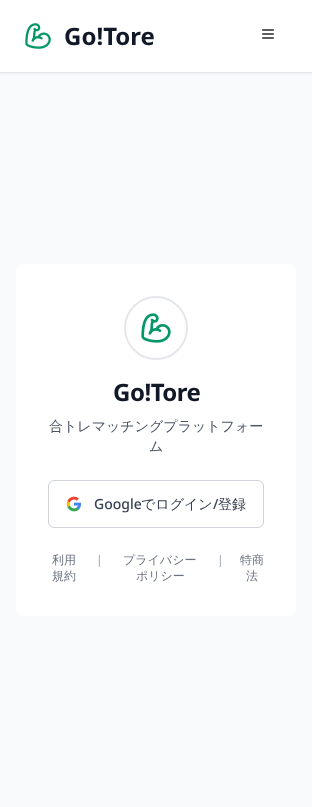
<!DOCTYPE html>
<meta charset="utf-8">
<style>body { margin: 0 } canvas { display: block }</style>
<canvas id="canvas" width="312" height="807"></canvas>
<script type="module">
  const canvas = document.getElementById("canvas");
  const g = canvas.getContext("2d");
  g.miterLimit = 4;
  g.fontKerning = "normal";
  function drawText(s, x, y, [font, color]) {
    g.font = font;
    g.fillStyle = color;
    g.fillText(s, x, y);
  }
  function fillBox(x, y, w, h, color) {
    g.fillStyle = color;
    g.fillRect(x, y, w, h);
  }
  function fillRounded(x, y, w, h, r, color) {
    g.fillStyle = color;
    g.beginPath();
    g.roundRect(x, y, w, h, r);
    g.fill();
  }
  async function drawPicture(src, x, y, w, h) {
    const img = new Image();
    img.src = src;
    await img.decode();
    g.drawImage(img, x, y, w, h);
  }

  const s1 = ["bold 24px Noto Sans", "#111827"];
  const s2 = ["500 14px WenQuanYi Zen Hei", "#4B5563"];
  const s3 = ["500 14px Noto Sans", "#374151"];
  const s4 = ["500 14px WenQuanYi Zen Hei", "#374151"];
  const s5 = ["500 12px WenQuanYi Zen Hei", "#6B7280"];
  const s6 = ["12px Noto Sans", "#9CA3AF"];

  fillBox(0, 0, 312, 807, "#F9FAFB");
  g.fillStyle = "rgba(0, 0, 0, 0.05)";
  g.filter = "blur(1px)";
  g.beginPath();
  g.rect(0, 1, 312, 73);
  g.fill();
  g.filter = "none";
  fillBox(0, 0, 312, 72, "#FFFFFF");
  fillBox(0, 72, 312, 1, "#E5E7EB");
  await drawPicture("pic1.png", 25, 23, 26, 26);
  drawText("Go!Tore", 64, 45, s1);
  await drawPicture("pic2.png", 262, 29, 12, 10);
  fillRounded(16, 264, 280, 352, 8, "#FFFFFF");
  g.beginPath();
  g.arc(156, 328, 31, 0, Math.PI * 2);
  g.strokeStyle = "#E5E7EB";
  g.lineWidth = 2;
  g.stroke();
  await drawPicture("pic3.png", 141, 313, 30, 30);
  g.letterSpacing = "-0.5px";
  drawText("Go!Tore", 113, 401, s1);
  g.letterSpacing = "0px";
  drawText("合トレマッチングプラットフォー", 49, 431, s2);
  drawText("ム", 149, 451, s2);
  g.beginPath();
  g.roundRect(48.5, 480.5, 215, 47, 5.5);
  g.strokeStyle = "#D1D5DB";
  g.lineWidth = 1;
  g.stroke();
  await drawPicture("pic4.png", 66, 496, 15, 16);
  drawText("Google", 94, 509, s3);
  drawText("でログイン", 141, 509, s4);
  drawText("/", 213, 509, s3);
  drawText("登録", 218, 509, s4);
  drawText("利用", 52, 564, s5);
  drawText("規約", 52, 580, s5);
  drawText("|", 96, 564, s6);
  drawText("プライバシー", 123, 564, s5);
  drawText("ポリシー", 136, 580, s5);
  drawText("|", 217, 564, s6);
  drawText("特商", 240, 564, s5);
  drawText("法", 246, 580, s5);
</script>
